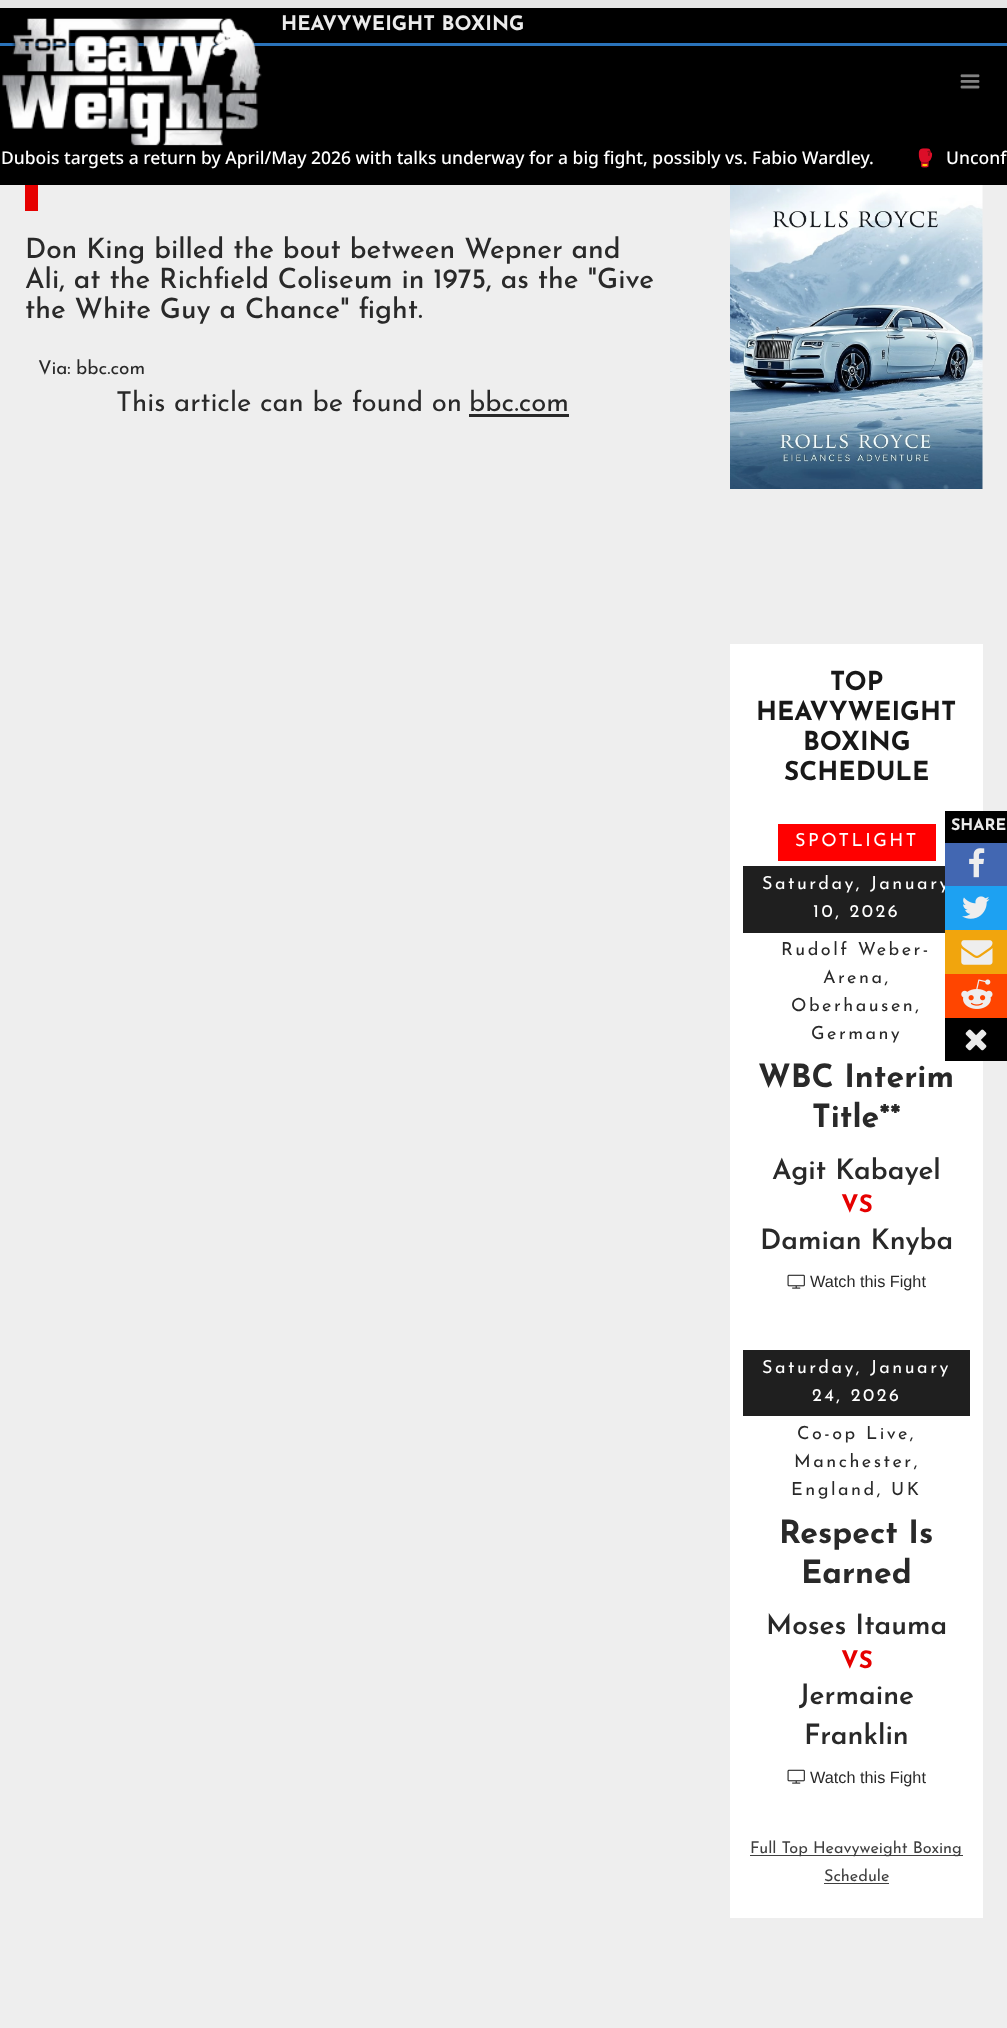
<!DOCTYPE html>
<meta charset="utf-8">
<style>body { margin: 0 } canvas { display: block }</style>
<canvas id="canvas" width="1007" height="2028"></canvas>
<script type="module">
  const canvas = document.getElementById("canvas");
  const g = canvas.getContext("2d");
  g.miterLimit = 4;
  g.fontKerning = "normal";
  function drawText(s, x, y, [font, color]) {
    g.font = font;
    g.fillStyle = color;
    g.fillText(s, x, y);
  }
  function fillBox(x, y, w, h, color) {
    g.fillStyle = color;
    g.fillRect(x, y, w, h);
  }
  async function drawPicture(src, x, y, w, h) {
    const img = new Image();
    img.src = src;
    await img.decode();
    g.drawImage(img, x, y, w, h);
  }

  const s1 = ["bold 20px Josefin Sans", "#EBEBEB"];
  const s2 = ["500 17.5px Noto Sans", "#FFFFFF"];
  const s3 = ["17.5px Noto Color Emoji", "#FFFFFF"];
  const s4 = ["500 28px Josefin Sans", "#292929"];
  const s5 = ["19px Josefin Sans", "#292929"];
  const s6 = ["27.5px Josefin Sans", "#292929"];
  const s7 = ["bold 26px Josefin Sans", "#181818"];
  const s8 = ["18px Josefin Sans", "#FFFFFF"];
  const s9 = ["18px Josefin Sans", "#292929"];
  const s10 = ["bold 32px Josefin Sans", "#292929"];
  const s11 = ["600 28px Josefin Sans", "#292929"];
  const s12 = ["bold 24px Josefin Sans", "#E60000"];
  const s13 = ["16.25px Liberation Sans", "#292929"];
  const s14 = ["16.25px Josefin Sans", "#3F3F3F"];
  const s15 = ["bold 16px Josefin Sans", "#EBEBEB"];

  fillBox(0, 0, 1007, 2028, "#EEEEEE");
  fillBox(0, 8, 1007, 177, "#000000");
  fillBox(0, 0, 1007, 8, "#E6E6E6");
  fillBox(0, 43, 1007, 3, "#2A73BA");
  drawText("HEAVYWEIGHT BOXING", 281, 30, s1);
  drawText("Dubois targets a return by April/May 2026 with talks underway for a big fight, possibly vs. Fabio Wardley.", 1, 164, s2);
  await drawPicture("pic1.png", 2, 18, 260, 134);
  await drawPicture("pic2.png", 960, 74, 20, 15);
  drawText("🥊", 914, 164, s3);
  drawText("Unconf", 946, 164, s2);
  fillBox(25, 185, 13, 26, "#E60000");
  drawText("Don King billed the bout between Wepner and", 25, 258, s4);
  drawText("Ali, at the Richfield Coliseum in 1975, as the \"Give", 25, 288, s4);
  drawText("the White Guy a Chance\" fight.", 25, 318, s4);
  drawText("Via:", 38, 374, s5);
  drawText("bbc.com", 76, 374, s5);
  drawText("This article can be found on", 116, 411, s6);
  drawText("bbc.com", 469, 411, s6);
  fillBox(469, 414, 100, 3, "#292929");
  await drawPicture("pic3.png", 730, 185, 253, 304);
  fillBox(730, 644, 253, 1274, "#FFFFFF");
  drawText("TOP", 830, 690, s7);
  drawText("HEAVYWEIGHT", 756, 720, s7);
  drawText("BOXING", 803, 750, s7);
  drawText("SCHEDULE", 784, 780, s7);
  fillBox(778, 824, 158, 37, "#FF0000");
  g.letterSpacing = "2.5px";
  drawText("SPOTLIGHT", 795, 846, s8);
  fillBox(743, 866, 202, 67, "#1F1F1F");
  drawText("Saturday, January", 762, 889, s8);
  drawText("10, 2026", 813, 917, s8);
  drawText("Rudolf Weber-", 781, 955, s9);
  drawText("Arena,", 823, 983, s9);
  drawText("Oberhausen,", 791, 1011, s9);
  drawText("Germany", 811, 1039, s9);
  g.letterSpacing = "0px";
  drawText("WBC Interim", 758, 1087, s10);
  drawText("Title**", 812, 1127, s10);
  drawText("Agit Kabayel", 772, 1179, s11);
  drawText("VS", 841, 1212, s12);
  drawText("Damian Knyba", 760, 1249, s11);
  await drawPicture("pic4.png", 787, 1274, 18, 15);
  drawText("Watch this Fight", 810, 1287, s13);
  fillBox(743, 1350, 227, 66, "#1F1F1F");
  g.letterSpacing = "2.5px";
  drawText("Saturday, January", 762, 1373, s8);
  drawText("24, 2026", 812, 1401, s8);
  drawText("Co-op Live,", 797, 1439, s9);
  drawText("Manchester,", 794, 1467, s9);
  drawText("England, UK", 791, 1495, s9);
  g.letterSpacing = "0px";
  drawText("Respect Is", 779, 1543, s10);
  drawText("Earned", 801, 1583, s10);
  drawText("Moses Itauma", 766, 1634, s11);
  drawText("VS", 841, 1668, s12);
  drawText("Jermaine", 799, 1704, s11);
  drawText("Franklin", 804, 1744, s11);
  await drawPicture("pic4.png", 787, 1769, 18, 15);
  drawText("Watch this Fight", 810, 1783, s13);
  fillBox(750, 1855, 213, 1, "#3F3F3F");
  drawText("Full Top Heavyweight Boxing", 750, 1853, s14);
  drawText("Schedule", 824, 1881, s14);
  fillBox(824, 1883, 65, 1, "#3F3F3F");
  fillBox(945, 811, 62, 32, "#000000");
  drawText("SHARE", 951, 830, s15);
  fillBox(945, 843, 62, 43, "#4267B2");
  await drawPicture("pic5.png", 969, 848, 16, 30);
  fillBox(945, 886, 62, 44, "#1DA1F2");
  await drawPicture("pic6.png", 962, 896, 28, 23);
  fillBox(945, 930, 62, 44, "#F1A50D");
  await drawPicture("pic7.png", 961, 940, 32, 25);
  fillBox(945, 974, 62, 44, "#FF4500");
  await drawPicture("pic8.png", 961, 979, 32, 30);
  fillBox(945, 1018, 62, 43, "#000000");
  await drawPicture("pic9.png", 965, 1029, 22, 22);
</script>
